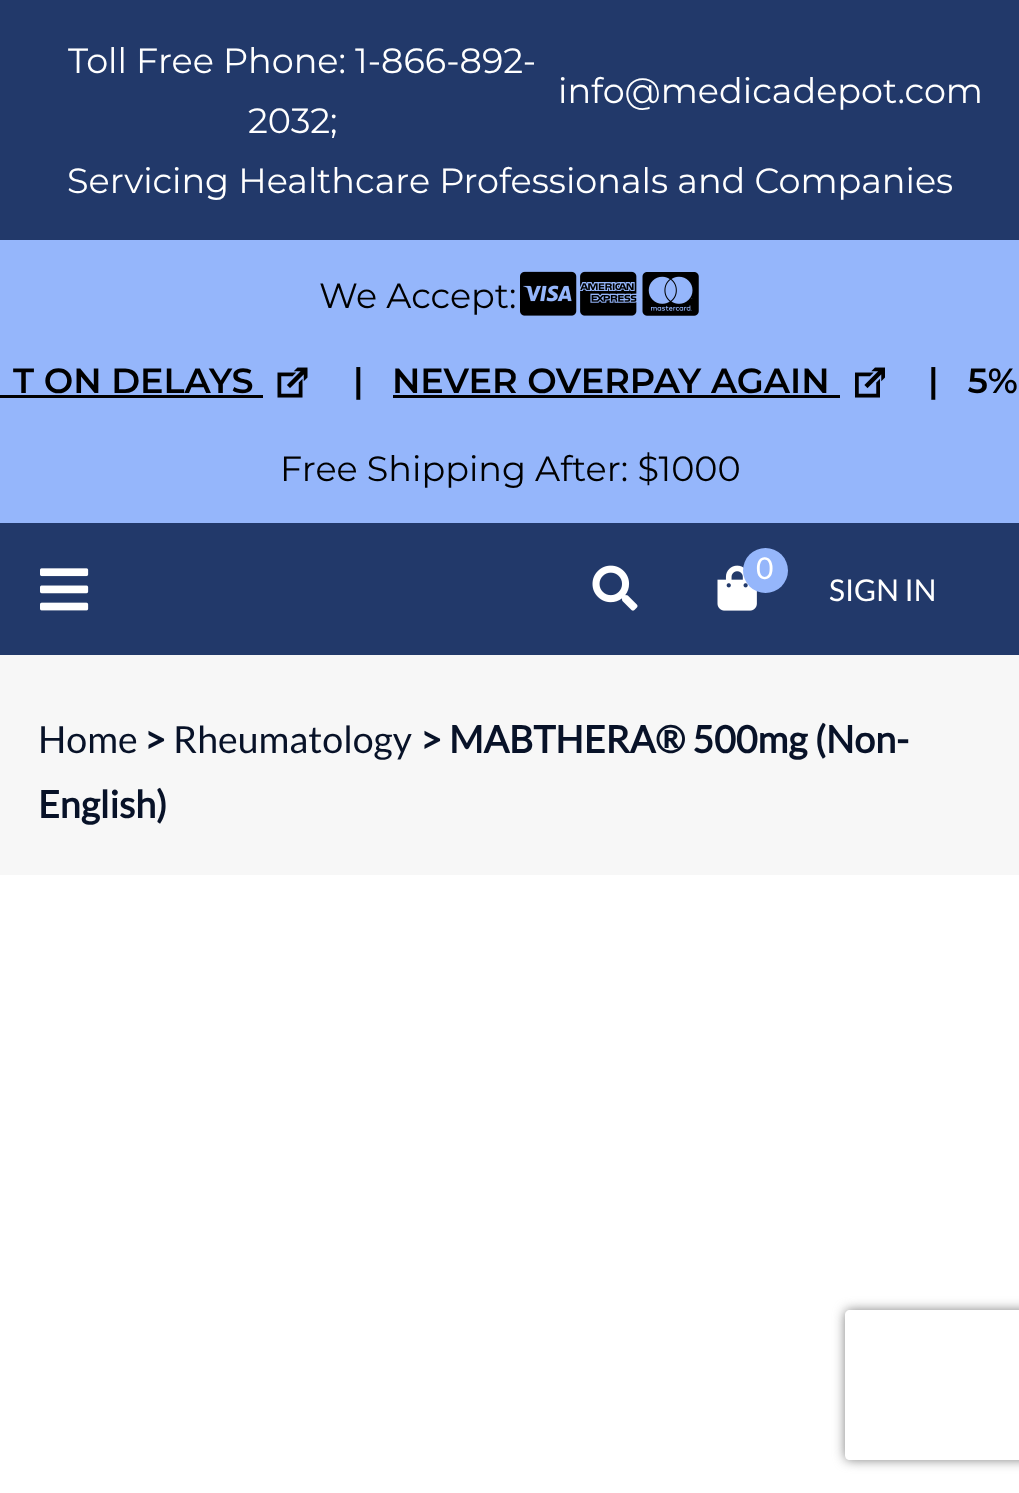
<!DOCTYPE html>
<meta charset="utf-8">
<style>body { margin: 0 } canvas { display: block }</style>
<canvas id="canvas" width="1019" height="1493"></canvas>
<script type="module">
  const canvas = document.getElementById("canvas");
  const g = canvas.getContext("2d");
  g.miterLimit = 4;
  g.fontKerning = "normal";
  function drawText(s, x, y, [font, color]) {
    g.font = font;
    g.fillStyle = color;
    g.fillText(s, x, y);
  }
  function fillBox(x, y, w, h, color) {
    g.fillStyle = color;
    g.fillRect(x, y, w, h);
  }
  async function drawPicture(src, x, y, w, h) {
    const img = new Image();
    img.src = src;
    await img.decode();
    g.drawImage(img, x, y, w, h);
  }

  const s1 = ["35px Montserrat", "#FFFFFF"];
  const s2 = ["35px Montserrat", "#000000"];
  const s3 = ["600 35px Montserrat", "#000000"];
  const s4 = ["30px Lato", "#FFFFFF"];
  const s5 = ["37.5px Lato", "#081228"];
  const s6 = ["bold 37.5px Lato", "#081228"];

  fillBox(0, 0, 1019, 1493, "#FFFFFF");
  fillBox(0, 0, 1019, 240, "#22396A");
  drawText("Toll Free Phone: 1-866-892-", 68, 73, s1);
  drawText("2032;", 248, 133, s1);
  drawText("info@medicadepot.com", 558, 103, s1);
  drawText("Servicing Healthcare Professionals and Companies", 67, 193, s1);
  fillBox(0, 240, 1019, 283, "#95B6FB");
  drawText("We Accept:", 319, 308, s2);
  await drawPicture("pic1.png", 520, 271, 57, 45);
  await drawPicture("pic2.png", 580, 271, 57, 45);
  await drawPicture("pic3.png", 642, 272, 57, 44);
  drawText("T ON DELAYS", 13, 393, s3);
  fillBox(0, 395, 263, 3, "#000000");
  await drawPicture("pic4.png", 277, 367, 31, 31);
  drawText("|", 353, 393, s3);
  drawText("NEVER OVERPAY AGAIN", 392, 393, s3);
  fillBox(393, 395, 447, 3, "#000000");
  await drawPicture("pic5.png", 855, 367, 30, 31);
  drawText("|   5%", 928, 393, s3);
  drawText("Free Shipping After: $1000", 280, 481, s2);
  fillBox(0, 523, 1019, 132, "#22396A");
  await drawPicture("pic6.png", 40, 568, 49, 43);
  await drawPicture("pic7.png", 592, 565, 46, 46);
  await drawPicture("pic8.png", 717, 565, 40, 46);
  g.fillStyle = "#95B6FB";
  g.beginPath();
  g.arc(765.5, 570.5, 22.5, 0, Math.PI * 2);
  g.fill();
  drawText("0", 756, 579, s4);
  drawText("SIGN IN", 829, 601, s4);
  fillBox(0, 655, 1019, 220, "#F7F7F7");
  drawText("Home", 38, 753, s5);
  drawText(">", 144, 753, s6);
  drawText("Rheumatology", 173, 753, s5);
  drawText("> MABTHERA® 500mg (Non-", 420, 753, s6);
  drawText("English)", 38, 818, s6);
  g.save();
  g.beginPath();
  g.moveTo(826, 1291);
  g.lineTo(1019, 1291);
  g.lineTo(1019, 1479);
  g.lineTo(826, 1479);
  g.closePath();
  g.moveTo(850, 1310);
  g.lineTo(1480, 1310);
  g.bezierCurveTo(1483, 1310, 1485, 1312, 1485, 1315);
  g.lineTo(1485, 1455);
  g.bezierCurveTo(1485, 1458, 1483, 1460, 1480, 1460);
  g.lineTo(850, 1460);
  g.bezierCurveTo(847, 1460, 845, 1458, 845, 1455);
  g.lineTo(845, 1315);
  g.bezierCurveTo(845, 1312, 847, 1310, 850, 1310);
  g.closePath();
  g.clip("evenodd");
  g.fillStyle = "#808080";
  g.filter = "blur(6px)";
  g.beginPath();
  g.roundRect(845, 1310, 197, 150, 5);
  g.fill();
  g.filter = "none";
  g.restore();
</script>
